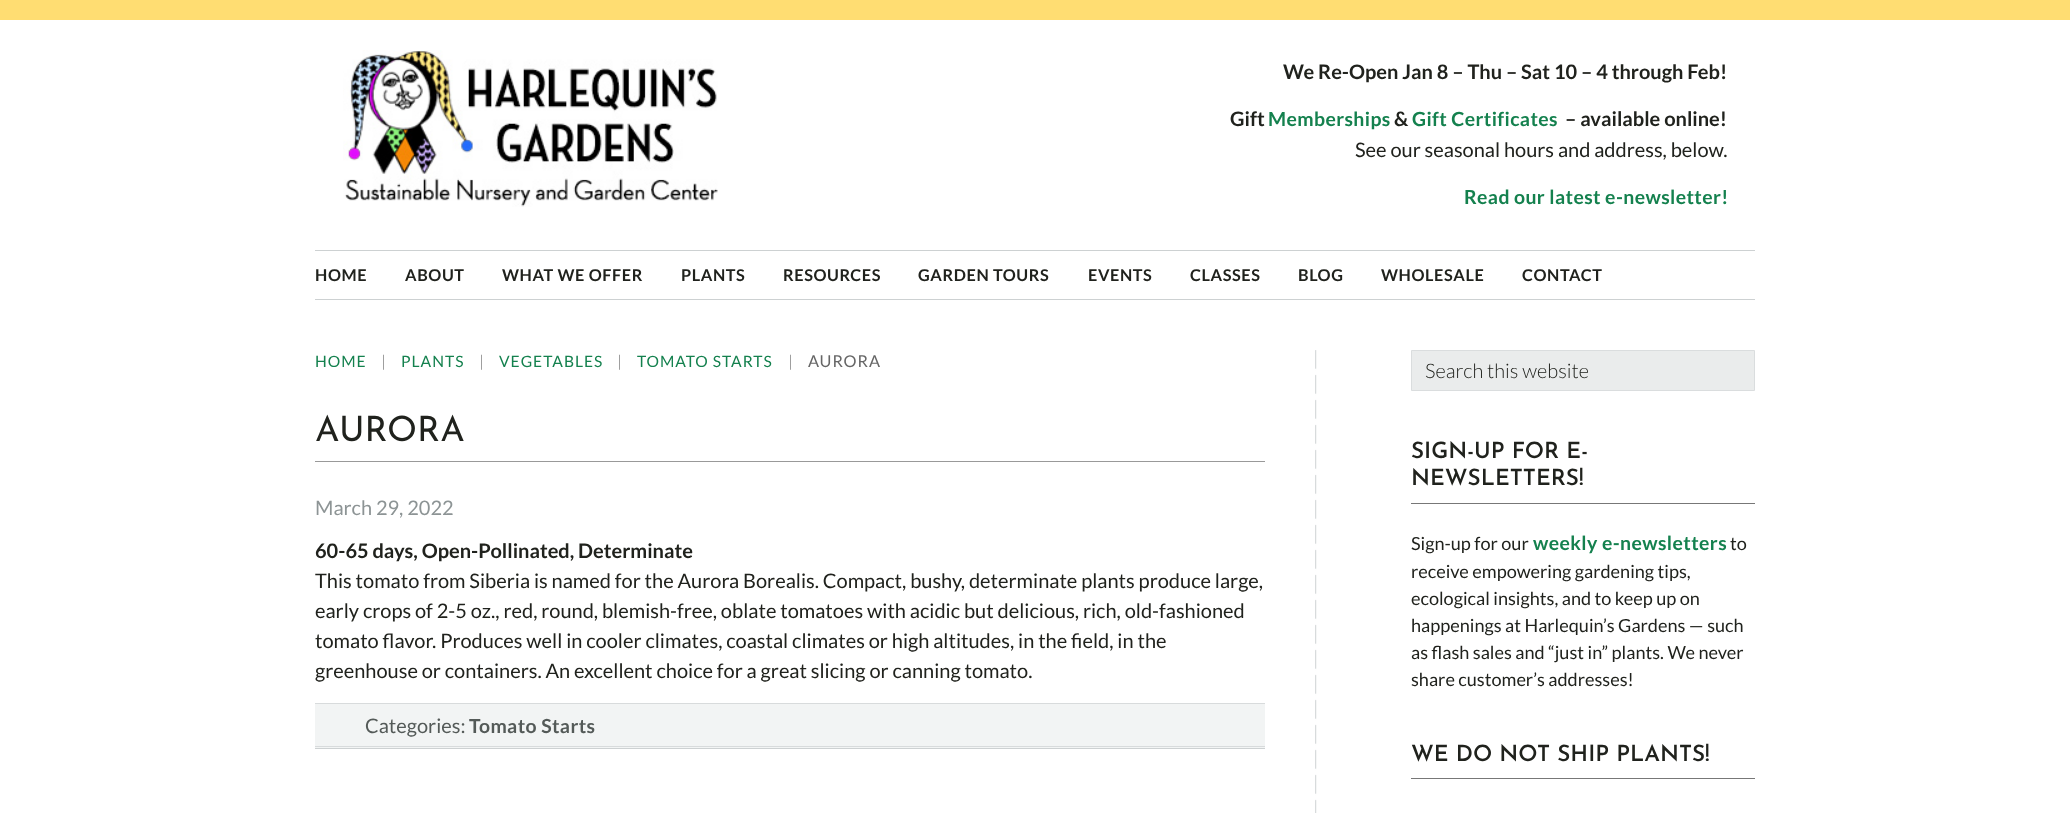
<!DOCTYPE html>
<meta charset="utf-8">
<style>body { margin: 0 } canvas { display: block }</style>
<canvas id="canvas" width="2070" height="813"></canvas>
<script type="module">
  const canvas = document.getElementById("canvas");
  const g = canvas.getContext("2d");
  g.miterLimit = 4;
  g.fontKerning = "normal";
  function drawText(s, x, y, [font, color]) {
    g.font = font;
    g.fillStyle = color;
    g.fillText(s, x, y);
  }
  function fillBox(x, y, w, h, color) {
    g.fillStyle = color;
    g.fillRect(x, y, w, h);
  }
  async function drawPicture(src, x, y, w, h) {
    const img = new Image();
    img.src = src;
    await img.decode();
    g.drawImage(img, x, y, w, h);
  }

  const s1 = ["bold 20px Lato", "#20221D"];
  const s2 = ["bold 19.4px Lato", "#14814E"];
  const s3 = ["20px Lato", "#20221D"];
  const s4 = ["bold 16.25px Lato", "#20221D"];
  const s5 = ["15.6px Lato", "#14814E"];
  const s6 = ["300 16.25px Lato", "#666666"];
  const s7 = ["16.25px Lato", "#666666"];
  const s8 = ["35px Josefin Sans", "#20221D"];
  const s9 = ["20px Lato", "#8D9495"];
  const s10 = ["20px Lato", "#545A58"];
  const s11 = ["bold 19.4px Lato", "#545A58"];
  const s12 = ["300 20px Lato", "#20221D"];
  const s13 = ["600 22.5px Josefin Sans", "#20221D"];
  const s14 = ["18.1px Lato", "#20221D"];

  fillBox(0, 0, 2070, 813, "#FFFFFF");
  fillBox(0, 0, 2070, 20, "#FFDD72");
  await drawPicture("pic1.png", 343, 50, 375, 157);
  drawText("We Re-Open Jan 8 – Thu – Sat 10 – 4 through Feb!", 1283, 79, s1);
  drawText("Gift", 1230, 126, s1);
  g.letterSpacing = "0.4px";
  drawText("Memberships", 1268, 126, s2);
  g.letterSpacing = "0px";
  drawText("&", 1394, 126, s1);
  g.letterSpacing = "0.4px";
  drawText("Gift Certificates", 1412, 126, s2);
  g.letterSpacing = "0px";
  drawText("– available online!", 1565, 126, s1);
  drawText("See our seasonal hours and address, below.", 1355, 157, s3);
  g.letterSpacing = "0.4px";
  drawText("Read our latest e-newsletter!", 1464, 204, s2);
  fillBox(315, 250, 1440, 1, "#CDD1D2");
  fillBox(315, 299, 1440, 1, "#CDD1D2");
  g.letterSpacing = "0.6px";
  drawText("HOME", 315, 281, s4);
  drawText("ABOUT", 405, 281, s4);
  drawText("WHAT WE OFFER", 502, 281, s4);
  drawText("PLANTS", 681, 281, s4);
  drawText("RESOURCES", 783, 281, s4);
  drawText("GARDEN TOURS", 918, 281, s4);
  drawText("EVENTS", 1088, 281, s4);
  drawText("CLASSES", 1190, 281, s4);
  drawText("BLOG", 1298, 281, s4);
  drawText("WHOLESALE", 1381, 281, s4);
  drawText("CONTACT", 1522, 281, s4);
  await drawPicture("pic2.png", 1315, 350, 2, 463);
  g.letterSpacing = "1px";
  drawText("HOME", 315, 367, s5);
  drawText("|", 381, 367, s6);
  drawText("PLANTS", 401, 367, s5);
  drawText("|", 479, 367, s6);
  drawText("VEGETABLES", 499, 367, s5);
  drawText("|", 617, 367, s6);
  drawText("TOMATO STARTS", 637, 367, s5);
  drawText("|", 788, 367, s6);
  drawText("AURORA", 808, 367, s7);
  fillBox(315, 748, 950, 1, "#CDD1D2");
  fillBox(315, 461, 950, 1, "#999999");
  g.letterSpacing = "0px";
  drawText("AURORA", 315, 441, s8);
  drawText("March 29, 2022", 315, 515, s9);
  drawText("60-65 days, Open-Pollinated, Determinate", 315, 558, s1);
  drawText("This tomato from Siberia is named for the Aurora Borealis. Compact, bushy, determinate plants produce large,", 315, 588, s3);
  drawText("early crops of 2-5 oz., red, round, blemish-free, oblate tomatoes with acidic but delicious, rich, old-fashioned", 315, 618, s3);
  drawText("tomato flavor. Produces well in cooler climates, coastal climates or high altitudes, in the field, in the", 315, 648, s3);
  drawText("greenhouse or containers. An excellent choice for a great slicing or canning tomato.", 315, 678, s3);
  fillBox(315, 704, 950, 44, "#F2F4F4");
  fillBox(315, 703, 950, 1, "#D8DBDC");
  fillBox(315, 746, 950, 1, "#D8DBDC");
  drawText("Categories:", 365, 733, s10);
  g.letterSpacing = "0.4px";
  drawText("Tomato Starts", 469, 733, s11);
  g.fillStyle = "#EAECEC";
  g.beginPath();
  g.rect(1411.5, 350.5, 343, 40);
  g.fill();
  g.strokeStyle = "#DADDDE";
  g.stroke();
  g.letterSpacing = "0px";
  drawText("Search this website", 1425, 378, s12);
  fillBox(1411, 503, 344, 1, "#777777");
  drawText("SIGN-UP FOR E-", 1411, 458, s13);
  drawText("NEWSLETTERS!", 1411, 485, s13);
  drawText("Sign-up for our", 1411, 550, s14);
  g.letterSpacing = "0.4px";
  drawText("weekly e-newsletters", 1533, 550, s2);
  g.letterSpacing = "0px";
  drawText("to", 1730, 550, s14);
  drawText("receive empowering gardening tips,", 1411, 578, s14);
  drawText("ecological insights, and to keep up on", 1411, 605, s14);
  drawText("happenings at Harlequin’s Gardens — such", 1411, 632, s14);
  drawText("as flash sales and “just in” plants. We never", 1411, 659, s14);
  drawText("share customer’s addresses!", 1411, 686, s14);
  fillBox(1411, 778, 344, 1, "#777777");
  drawText("WE DO NOT SHIP PLANTS!", 1411, 761, s13);
</script>
